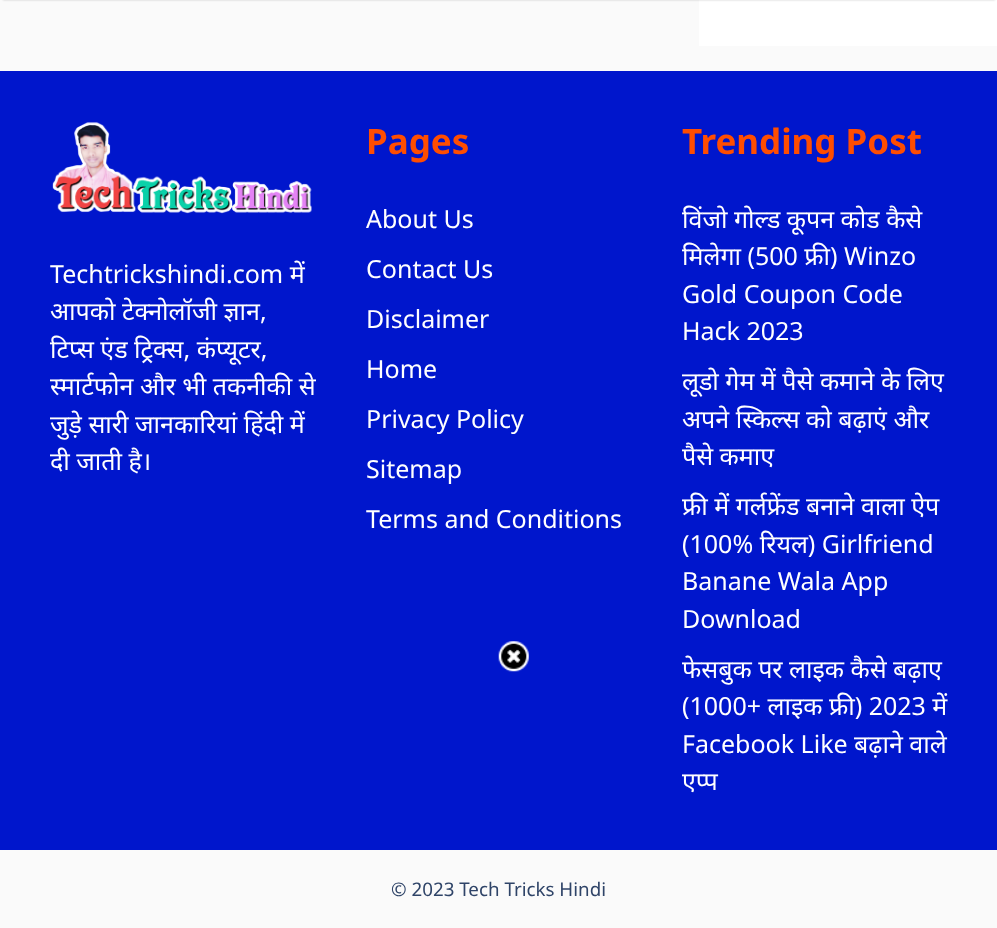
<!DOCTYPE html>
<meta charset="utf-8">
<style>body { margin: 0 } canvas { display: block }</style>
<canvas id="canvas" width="997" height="928"></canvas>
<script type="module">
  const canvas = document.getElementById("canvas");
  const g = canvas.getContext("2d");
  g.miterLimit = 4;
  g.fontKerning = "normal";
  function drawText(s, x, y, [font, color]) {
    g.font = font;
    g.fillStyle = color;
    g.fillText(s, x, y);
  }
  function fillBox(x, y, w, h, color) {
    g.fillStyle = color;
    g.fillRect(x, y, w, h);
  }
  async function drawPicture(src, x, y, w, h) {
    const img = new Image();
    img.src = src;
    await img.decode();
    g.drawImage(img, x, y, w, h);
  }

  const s1 = ["25px Noto Sans", "#FFFFFF"];
  const s2 = ["bold 35px Noto Sans", "#FF4D01"];
  const s3 = ["18.75px Noto Sans", "#2F4468"];

  fillBox(0, 0, 997, 928, "#FAFAFA");
  fillBox(699, 0, 298, 46, "#FFFFFF");
  g.fillStyle = "rgba(0, 0, 0, 0.2)";
  g.filter = "blur(1px)";
  g.beginPath();
  g.rect(3, -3, 992, 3);
  g.fill();
  g.filter = "none";
  fillBox(0, 71, 997, 779, "#0016CC");
  await drawPicture("pic1.png", 52, 122, 260, 92);
  drawText("Techtrickshindi.com में", 50, 283, s1);
  drawText("आपको टेक्नोलॉजी ज्ञान,", 50, 320, s1);
  drawText("टिप्स एंड ट्रिक्स, कंप्यूटर,", 50, 358, s1);
  drawText("स्मार्टफोन और भी तकनीकी से", 50, 395, s1);
  drawText("जुड़े सारी जानकारियां हिंदी में", 50, 433, s1);
  drawText("दी जाती है।", 50, 470, s1);
  drawText("Pages", 366, 154, s2);
  drawText("About Us", 366, 228, s1);
  drawText("Contact Us", 366, 278, s1);
  drawText("Disclaimer", 366, 328, s1);
  drawText("Home", 366, 378, s1);
  drawText("Privacy Policy", 366, 428, s1);
  drawText("Sitemap", 366, 478, s1);
  drawText("Terms and Conditions", 366, 528, s1);
  drawText("Trending Post", 682, 154, s2);
  drawText("विंजो गोल्ड कूपन कोड कैसे", 682, 228, s1);
  drawText("मिलेगा (500 फ्री) Winzo", 682, 265, s1);
  drawText("Gold Coupon Code", 682, 303, s1);
  drawText("Hack 2023", 682, 340, s1);
  drawText("लूडो गेम में पैसे कमाने के लिए", 682, 390, s1);
  drawText("अपने स्किल्स को बढ़ाएं और", 682, 428, s1);
  drawText("पैसे कमाए", 682, 465, s1);
  drawText("फ्री में गर्लफ्रेंड बनाने वाला ऐप", 682, 515, s1);
  drawText("(100% रियल) Girlfriend", 682, 553, s1);
  drawText("Banane Wala App", 682, 590, s1);
  drawText("Download", 682, 628, s1);
  drawText("फेसबुक पर लाइक कैसे बढ़ाए", 682, 678, s1);
  drawText("(1000+ लाइक फ्री) 2023 में", 682, 715, s1);
  drawText("Facebook Like बढ़ाने वाले", 682, 753, s1);
  drawText("एप्प", 682, 790, s1);
  drawText("© 2023 Tech Tricks Hindi", 391, 896, s3);
  await drawPicture("pic2.png", 498, 641, 31, 31);
</script>
